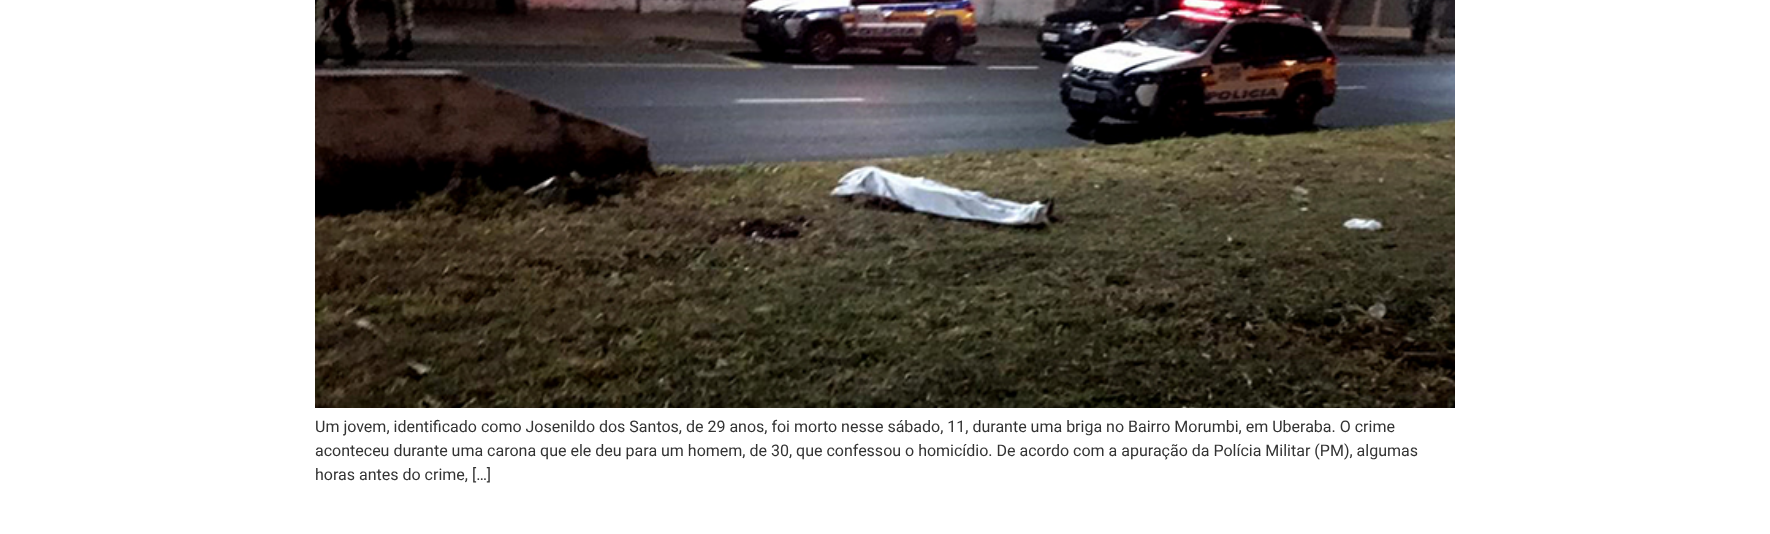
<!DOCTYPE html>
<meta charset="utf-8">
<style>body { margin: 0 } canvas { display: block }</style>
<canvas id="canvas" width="1770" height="534"></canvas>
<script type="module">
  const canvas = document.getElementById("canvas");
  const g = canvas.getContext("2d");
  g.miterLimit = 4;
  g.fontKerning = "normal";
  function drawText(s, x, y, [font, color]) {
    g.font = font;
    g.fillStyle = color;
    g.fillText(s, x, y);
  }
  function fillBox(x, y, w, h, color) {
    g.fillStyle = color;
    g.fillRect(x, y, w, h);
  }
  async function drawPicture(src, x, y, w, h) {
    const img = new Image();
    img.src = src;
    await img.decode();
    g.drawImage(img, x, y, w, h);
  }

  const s1 = ["16px Roboto", "#333333"];

  fillBox(0, 0, 1770, 534, "#FFFFFF");
  await drawPicture("pic1.png", 315, 0, 1140, 408);
  drawText("Um jovem, identificado como Josenildo dos Santos, de 29 anos, foi morto nesse sábado, 11, durante uma briga no Bairro Morumbi, em Uberaba. O crime", 315, 432, s1);
  drawText("aconteceu durante uma carona que ele deu para um homem, de 30, que confessou o homicídio. De acordo com a apuração da Polícia Militar (PM), algumas", 315, 456, s1);
  drawText("horas antes do crime, […]", 315, 480, s1);
</script>
